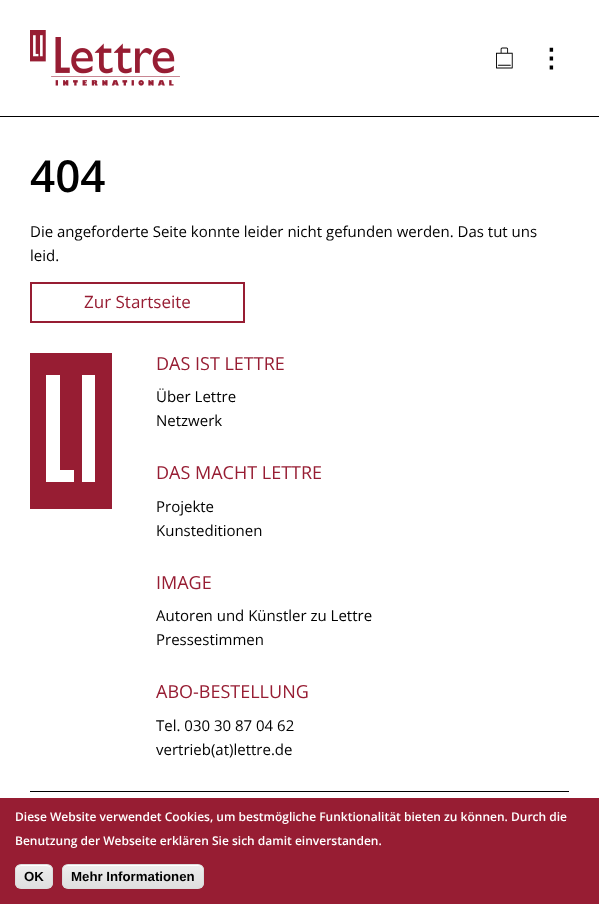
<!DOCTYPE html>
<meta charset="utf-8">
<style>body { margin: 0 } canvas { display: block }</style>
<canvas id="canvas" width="599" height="904"></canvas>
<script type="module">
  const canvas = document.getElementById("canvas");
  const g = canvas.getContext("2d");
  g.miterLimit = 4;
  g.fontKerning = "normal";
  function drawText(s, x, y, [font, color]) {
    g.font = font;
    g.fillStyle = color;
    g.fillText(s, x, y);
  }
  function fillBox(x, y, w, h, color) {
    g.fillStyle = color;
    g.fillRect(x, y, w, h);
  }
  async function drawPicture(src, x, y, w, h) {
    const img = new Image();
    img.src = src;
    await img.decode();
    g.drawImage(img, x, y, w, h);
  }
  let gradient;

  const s1 = ["26px basic", "#000000"];
  const s2 = ["bold 26px DejaVu Sans", "#000000"];
  const s3 = ["600 44px Open Sans", "#000000"];
  const s4 = ["15px Open Sans", "#000000"];
  const s5 = ["17px Open Sans", "#971D33"];
  const s6 = ["18px Open Sans", "#971D33"];
  const s7 = ["600 12px Open Sans", "#FFFFFF"];
  const s8 = ["bold 13.25px Liberation Sans", "#000000"];

  fillBox(0, 0, 599, 904, "#FFFFFF");
  fillBox(0, 116, 599, 1, "#000000");
  await drawPicture("pic1.png", 30, 30, 150, 56);
  drawText("🛍", 496, 67, s1);
  drawText("⋮", 538, 67, s2);
  drawText("404", 30, 192, s3);
  drawText("Die angeforderte Seite konnte leider nicht gefunden werden. Das tut uns", 30, 237, s4);
  drawText("leid.", 30, 261, s4);
  g.strokeStyle = "#971D33";
  g.lineWidth = 2;
  g.strokeRect(31, 283, 213, 39);
  drawText("Zur Startseite", 84, 308, s5);
  fillBox(30, 353, 82, 156, "#971D33");
  g.fillStyle = "#FFFFFF";
  g.beginPath();
  g.moveTo(82, 375);
  g.lineTo(95, 375);
  g.lineTo(95, 482);
  g.lineTo(82, 482);
  g.closePath();
  g.moveTo(46, 375);
  g.lineTo(60, 375);
  g.lineTo(60, 470);
  g.lineTo(74, 470);
  g.lineTo(74, 482);
  g.lineTo(46, 482);
  g.closePath();
  g.fill();
  drawText("DAS IST LETTRE", 156, 370, s6);
  drawText("Über Lettre", 156, 402, s4);
  drawText("Netzwerk", 156, 426, s4);
  drawText("DAS MACHT LETTRE", 156, 479, s6);
  drawText("Projekte", 156, 512, s4);
  drawText("Kunsteditionen", 156, 536, s4);
  drawText("IMAGE", 156, 589, s6);
  drawText("Autoren und Künstler zu Lettre", 156, 621, s4);
  drawText("Pressestimmen", 156, 645, s4);
  drawText("ABO-BESTELLUNG", 156, 698, s6);
  drawText("Tel. 030 30 87 04 62", 156, 731, s4);
  drawText("vertrieb(at)lettre.de", 156, 755, s4);
  fillBox(30, 791, 539, 1, "#000000");
  fillBox(0, 798, 599, 106, "#971D33");
  drawText("Diese Website verwendet Cookies, um bestmögliche Funktionalität bieten zu können. Durch die", 15, 821, s7);
  drawText("Benutzung der Webseite erklären Sie sich damit einverstanden.", 15, 845, s7);
  g.save();
  g.beginPath();
  g.roundRect(15, 864, 38, 25, 6);
  g.clip();
  gradient = g.createLinearGradient(34, 865, 34, 888);
  gradient.addColorStop(0.05, "#EDEDED");
  gradient.addColorStop(1, "#DFDFDF");
  g.fillStyle = gradient;
  g.fillRect(15, 865, 38, 23);
  g.restore();
  g.beginPath();
  g.moveTo(21, 866);
  g.lineTo(43, 866);
  g.bezierCurveTo(50.5, 866, 52, 867, 52, 872);
  g.bezierCurveTo(52, 865, 49, 865, 42.5, 865);
  g.lineTo(25.5, 865);
  g.bezierCurveTo(18.5, 865, 16, 865, 16, 872.5);
  g.bezierCurveTo(16, 869, 17, 866, 21, 866);
  g.closePath();
  g.fill();
  g.beginPath();
  g.roundRect(15.5, 864.5, 37, 24, 5.5);
  g.strokeStyle = "#DCDCDC";
  g.lineWidth = 1;
  g.stroke();
  drawText("OK", 24, 881, s8);
  g.save();
  g.beginPath();
  g.roundRect(62, 864, 142, 25, 6);
  g.clip();
  gradient = g.createLinearGradient(133, 865, 133, 888);
  gradient.addColorStop(0.05, "#EDEDED");
  gradient.addColorStop(1, "#DFDFDF");
  g.fillStyle = gradient;
  g.fillRect(62, 865, 142, 23);
  g.restore();
  g.fillStyle = "#FFFFFF";
  g.beginPath();
  g.moveTo(68, 866);
  g.lineTo(198, 866);
  g.bezierCurveTo(201, 866, 203, 868, 203, 871);
  g.lineTo(203, 870);
  g.bezierCurveTo(203, 867, 201, 865, 198, 865);
  g.lineTo(68, 865);
  g.bezierCurveTo(65, 865, 63, 867, 63, 870);
  g.lineTo(63, 871);
  g.bezierCurveTo(63, 868, 65, 866, 68, 866);
  g.closePath();
  g.fill();
  g.beginPath();
  g.roundRect(62.5, 864.5, 141, 24, 5.5);
  g.stroke();
  drawText("Mehr Informationen", 71, 881, s8);
</script>
